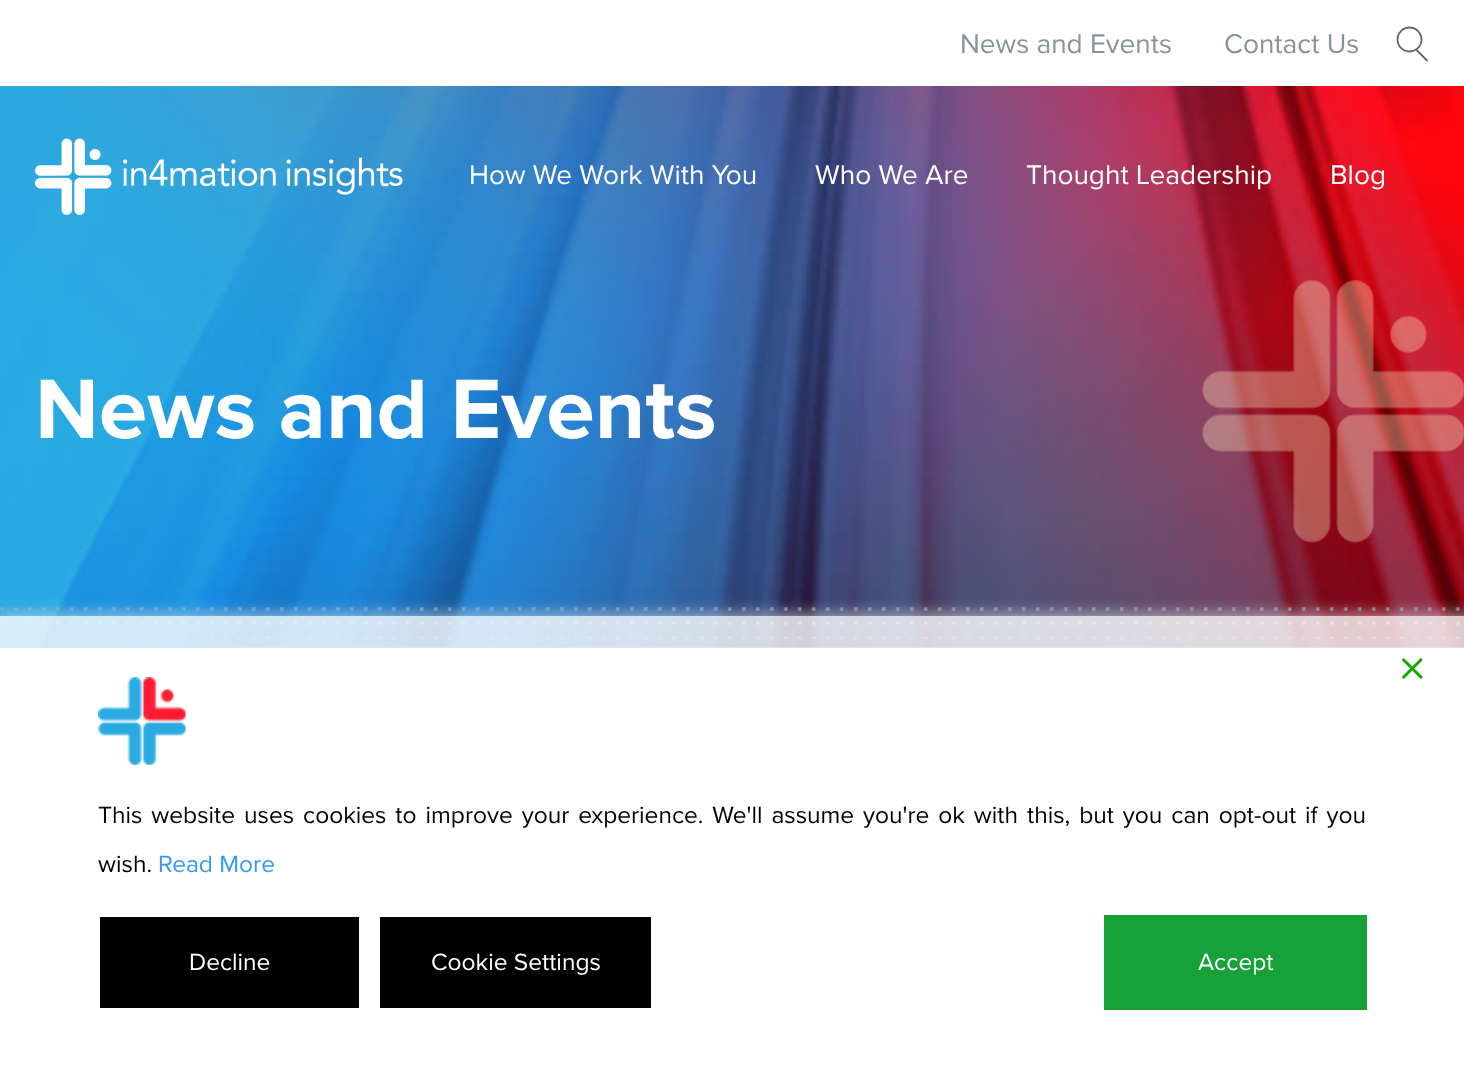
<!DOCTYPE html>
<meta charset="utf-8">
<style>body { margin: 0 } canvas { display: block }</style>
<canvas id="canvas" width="1464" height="1070"></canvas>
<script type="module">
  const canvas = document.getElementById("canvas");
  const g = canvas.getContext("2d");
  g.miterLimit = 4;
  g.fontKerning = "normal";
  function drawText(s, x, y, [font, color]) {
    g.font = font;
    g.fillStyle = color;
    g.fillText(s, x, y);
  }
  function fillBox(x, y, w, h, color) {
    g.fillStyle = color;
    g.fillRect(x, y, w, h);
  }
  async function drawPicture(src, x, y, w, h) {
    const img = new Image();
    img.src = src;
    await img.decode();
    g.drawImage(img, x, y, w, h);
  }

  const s1 = ["28px Proxima Nova", "#869399"];
  const s2 = ["28px Proxima Nova", "#FFFFFF"];
  const s3 = ["bold 87.5px Proxima Nova", "#FFFFFF"];
  const s4 = ["24.5px Proxima Nova", "#000000"];
  const s5 = ["24.5px Proxima Nova", "#359BF5"];
  const s6 = ["24.5px Proxima Nova", "#FFFFFF"];

  fillBox(0, 0, 1464, 1070, "#FFFFFF");
  drawText("News and Events", 960, 53, s1);
  drawText("Contact Us", 1224, 53, s1);
  g.beginPath();
  g.arc(1409.5, 39.5, 12, 0, Math.PI * 2);
  g.strokeStyle = "#646464";
  g.lineWidth = 1.8;
  g.stroke();
  g.beginPath();
  g.moveTo(1416.5, 50);
  g.lineTo(1427, 60.5);
  g.lineCap = "round";
  g.lineJoin = "round";
  g.stroke();
  fillBox(0, 647, 1464, 1, "#2AAAE3");
  await drawPicture("pic2.png", 0, 86, 1464, 562);
  await drawPicture("pic1.png", 35, 138, 368, 77);
  drawText("How We Work With You", 469, 184, s2);
  drawText("Who We Are", 815, 184, s2);
  drawText("Thought Leadership", 1026, 184, s2);
  drawText("Blog", 1330, 184, s2);
  drawText("News and Events", 35, 438, s3);
  await drawPicture("pic3.png", 1202, 280, 262, 263);
  await drawPicture("pic4.png", 0, 607, 1460, 32);
  g.save();
  g.beginPath();
  g.rect(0, 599, 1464, 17);
  g.clip();
  g.fillStyle = "#DDDDDD";
  g.filter = "blur(9.5px)";
  g.beginPath();
  g.rect(-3, 618, 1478, 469);
  g.fill();
  g.filter = "none";
  g.restore();
  fillBox(0, 616, 1464, 32, "rgba(255, 255, 255, 0.8)");
  await drawPicture("pic5.png", 1402, 658, 21, 21);
  await drawPicture("pic6.png", 98, 677, 88, 88);
  g.wordSpacing = "2.6px";
  drawText("This website uses cookies to improve your experience. We'll assume you're ok with this, but you can opt-out if you", 98, 823, s4);
  g.wordSpacing = "0px";
  drawText("wish.", 98, 872, s4);
  drawText("Read More", 158, 872, s5);
  fillBox(100, 917, 259, 91, "#000000");
  drawText("Decline", 189, 970, s6);
  fillBox(380, 917, 271, 91, "#000000");
  drawText("Cookie Settings", 431, 970, s6);
  fillBox(1104, 915, 263, 95, "#16A239");
  drawText("Accept", 1198, 970, s6);
</script>
